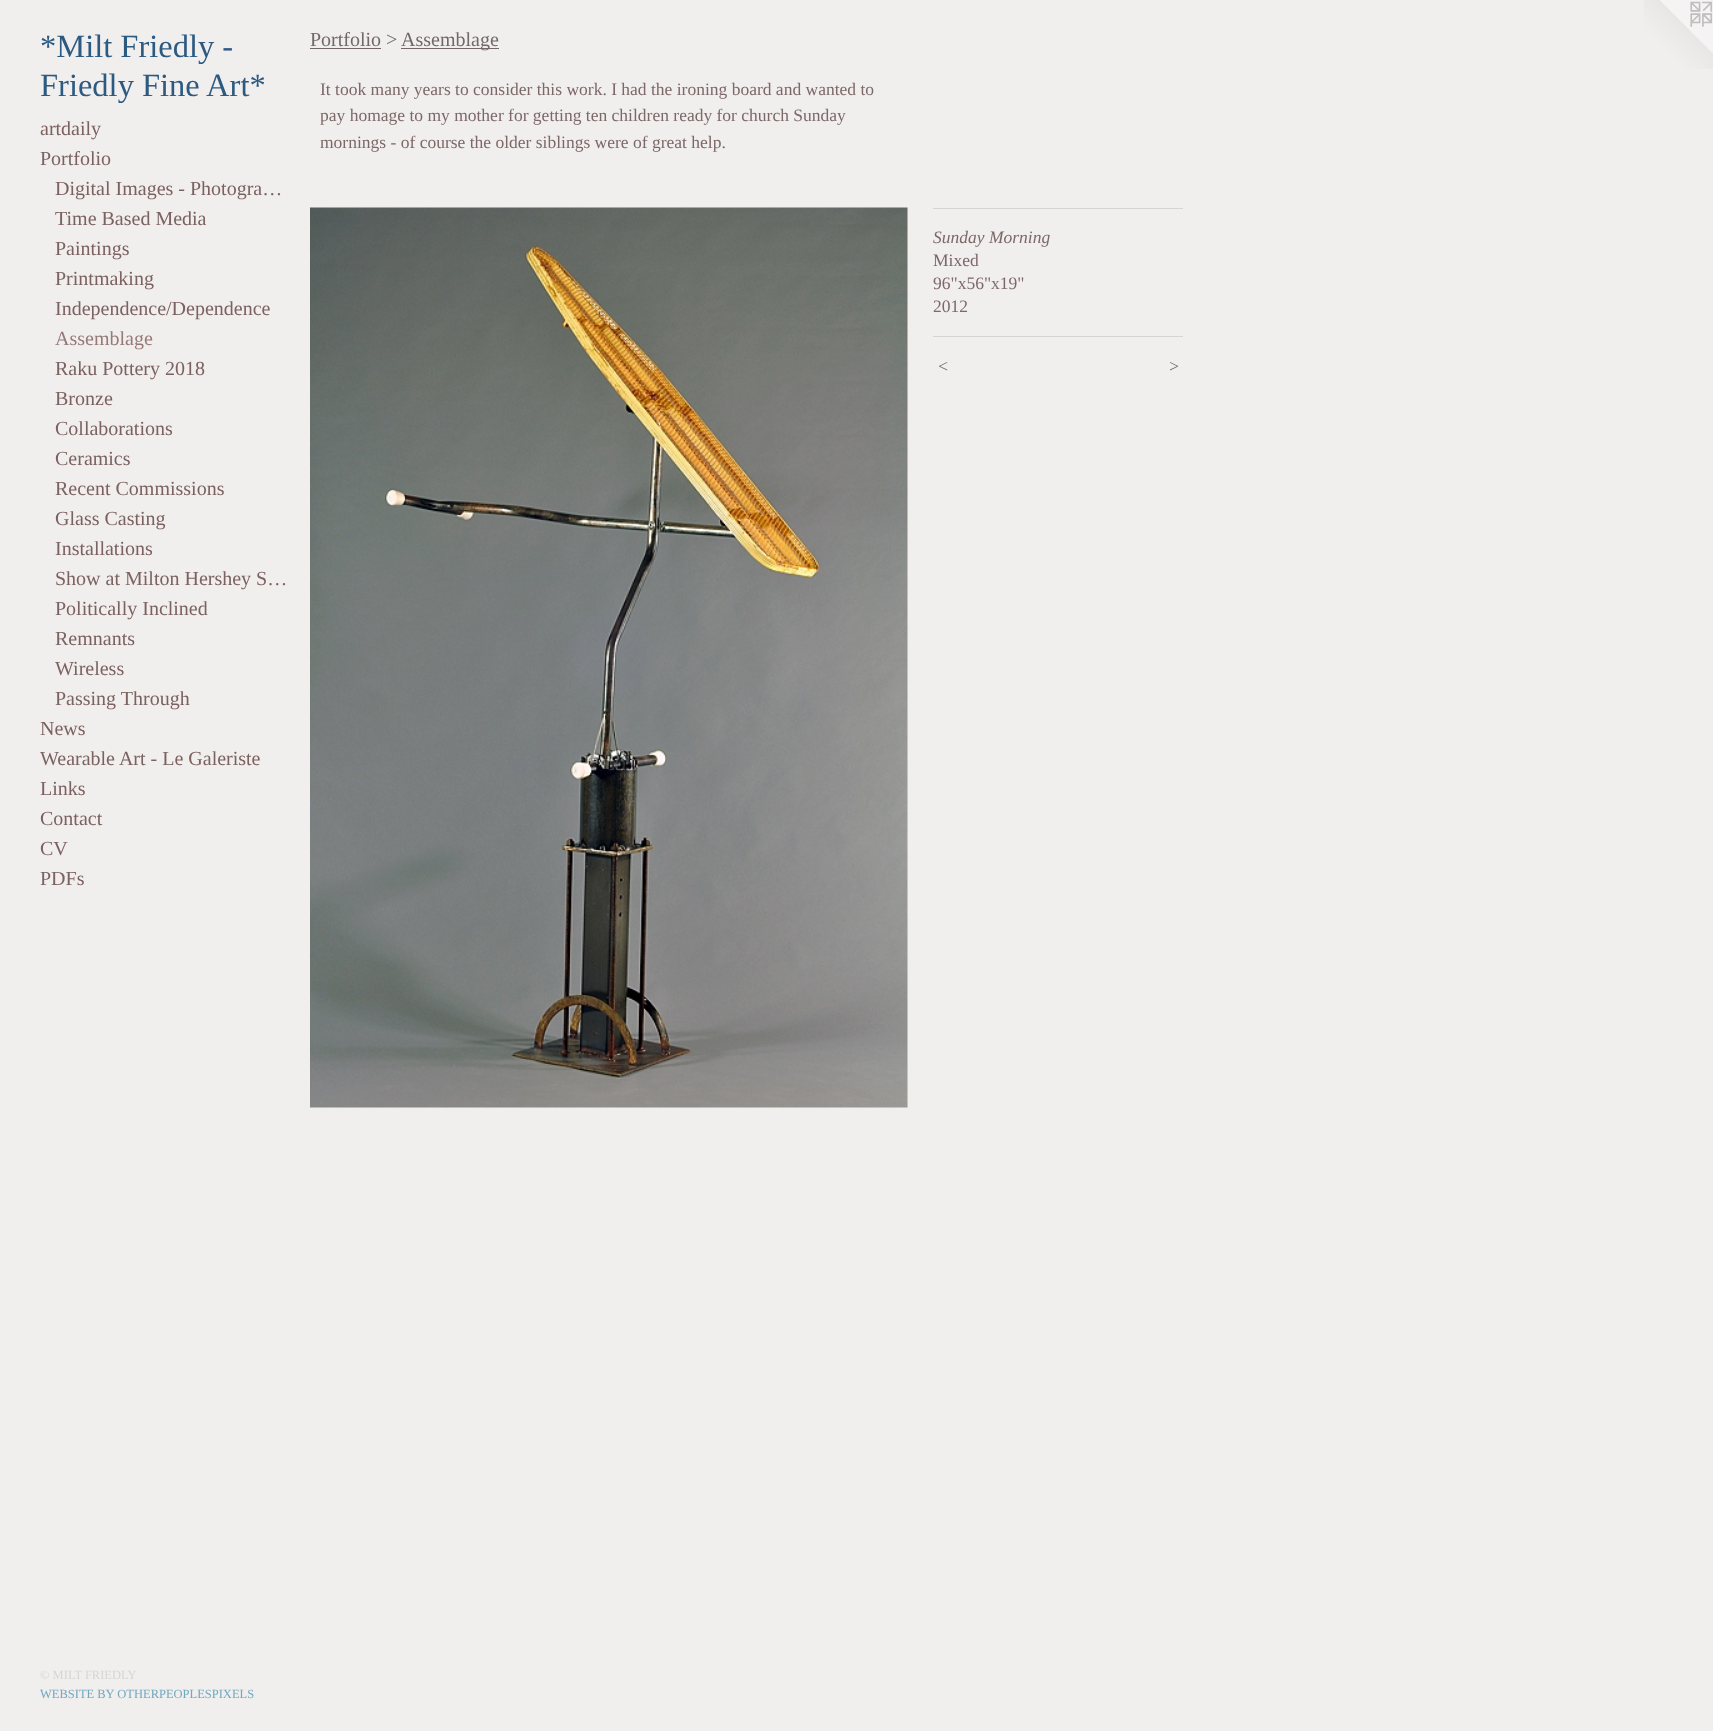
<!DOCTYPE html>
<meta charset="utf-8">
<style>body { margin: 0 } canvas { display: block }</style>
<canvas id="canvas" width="1713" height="1731"></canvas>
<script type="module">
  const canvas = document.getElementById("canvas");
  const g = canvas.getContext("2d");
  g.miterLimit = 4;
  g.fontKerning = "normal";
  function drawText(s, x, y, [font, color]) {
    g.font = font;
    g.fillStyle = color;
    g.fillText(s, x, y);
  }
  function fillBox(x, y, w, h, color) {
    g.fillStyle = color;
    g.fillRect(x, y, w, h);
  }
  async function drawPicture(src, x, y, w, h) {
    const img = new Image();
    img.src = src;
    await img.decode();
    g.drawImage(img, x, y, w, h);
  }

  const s1 = ["32.5px Liberation Serif", "#2C5A81"];
  const s2 = ["20px Liberation Serif", "#7B6260"];
  const s3 = ["20px Liberation Serif", "#967A78"];
  const s4 = ["12.5px Liberation Serif", "#D6D6D6"];
  const s5 = ["12.5px Liberation Serif", "#70A8C0"];
  const s6 = ["20px Liberation Serif", "#736868"];
  const s7 = ["17.5px Liberation Serif", "#7D6868"];
  const s8 = ["italic 17.5px Liberation Serif", "#7D6868"];

  fillBox(0, 0, 1713, 1731, "#F1EEEE");
  drawText("*Milt Friedly -", 40, 57, s1);
  drawText("Friedly Fine Art*", 40, 96, s1);
  drawText("artdaily", 40, 135, s2);
  drawText("Portfolio", 40, 165, s2);
  drawText("Digital Images - Photogra…", 55, 195, s2);
  drawText("Time Based Media", 55, 225, s2);
  drawText("Paintings", 55, 255, s2);
  drawText("Printmaking", 55, 285, s2);
  drawText("Independence/Dependence", 55, 315, s2);
  drawText("Assemblage", 55, 345, s3);
  drawText("Raku Pottery 2018", 55, 375, s2);
  drawText("Bronze", 55, 405, s2);
  drawText("Collaborations", 55, 435, s2);
  drawText("Ceramics", 55, 465, s2);
  drawText("Recent Commissions", 55, 495, s2);
  drawText("Glass Casting", 55, 525, s2);
  drawText("Installations", 55, 555, s2);
  drawText("Show at Milton Hershey S…", 55, 585, s2);
  drawText("Politically Inclined", 55, 615, s2);
  drawText("Remnants", 55, 645, s2);
  drawText("Wireless", 55, 675, s2);
  drawText("Passing Through", 55, 705, s2);
  drawText("News", 40, 735, s2);
  drawText("Wearable Art - Le Galeriste", 40, 765, s2);
  drawText("Links", 40, 795, s2);
  drawText("Contact", 40, 825, s2);
  drawText("CV", 40, 855, s2);
  drawText("PDFs", 40, 885, s2);
  drawText("© MILT FRIEDLY", 40, 1679, s4);
  drawText("WEBSITE BY OTHERPEOPLESPIXELS", 40, 1698, s5);
  drawText("Portfolio", 310, 46, s6);
  fillBox(310, 48, 71, 1, "#736868");
  drawText(">", 386, 46, s6);
  fillBox(401, 48, 98, 1, "#736868");
  drawText("Assemblage", 401, 46, s6);
  drawText("It took many years to consider this work. I had the ironing board and wanted to", 320, 95, s7);
  drawText("pay homage to my mother for getting ten children ready for church Sunday", 320, 121, s7);
  drawText("mornings - of course the older siblings were of great help.", 320, 148, s7);
  await drawPicture("pic1.png", 310, 207, 598, 901);
  fillBox(933, 208, 250, 1, "#DAD3D3");
  drawText("Sunday Morning", 933, 243, s8);
  drawText("Mixed", 933, 266, s7);
  drawText("96\"x56\"x19\"", 933, 289, s7);
  drawText("2012", 933, 312, s7);
  fillBox(933, 336, 250, 1, "#DAD3D3");
  g.letterSpacing = "1px";
  drawText("<", 937, 372, s8);
  drawText(">", 1168, 372, s8);
  await drawPicture("pic2.png", 1644, 0, 69, 69);
</script>
